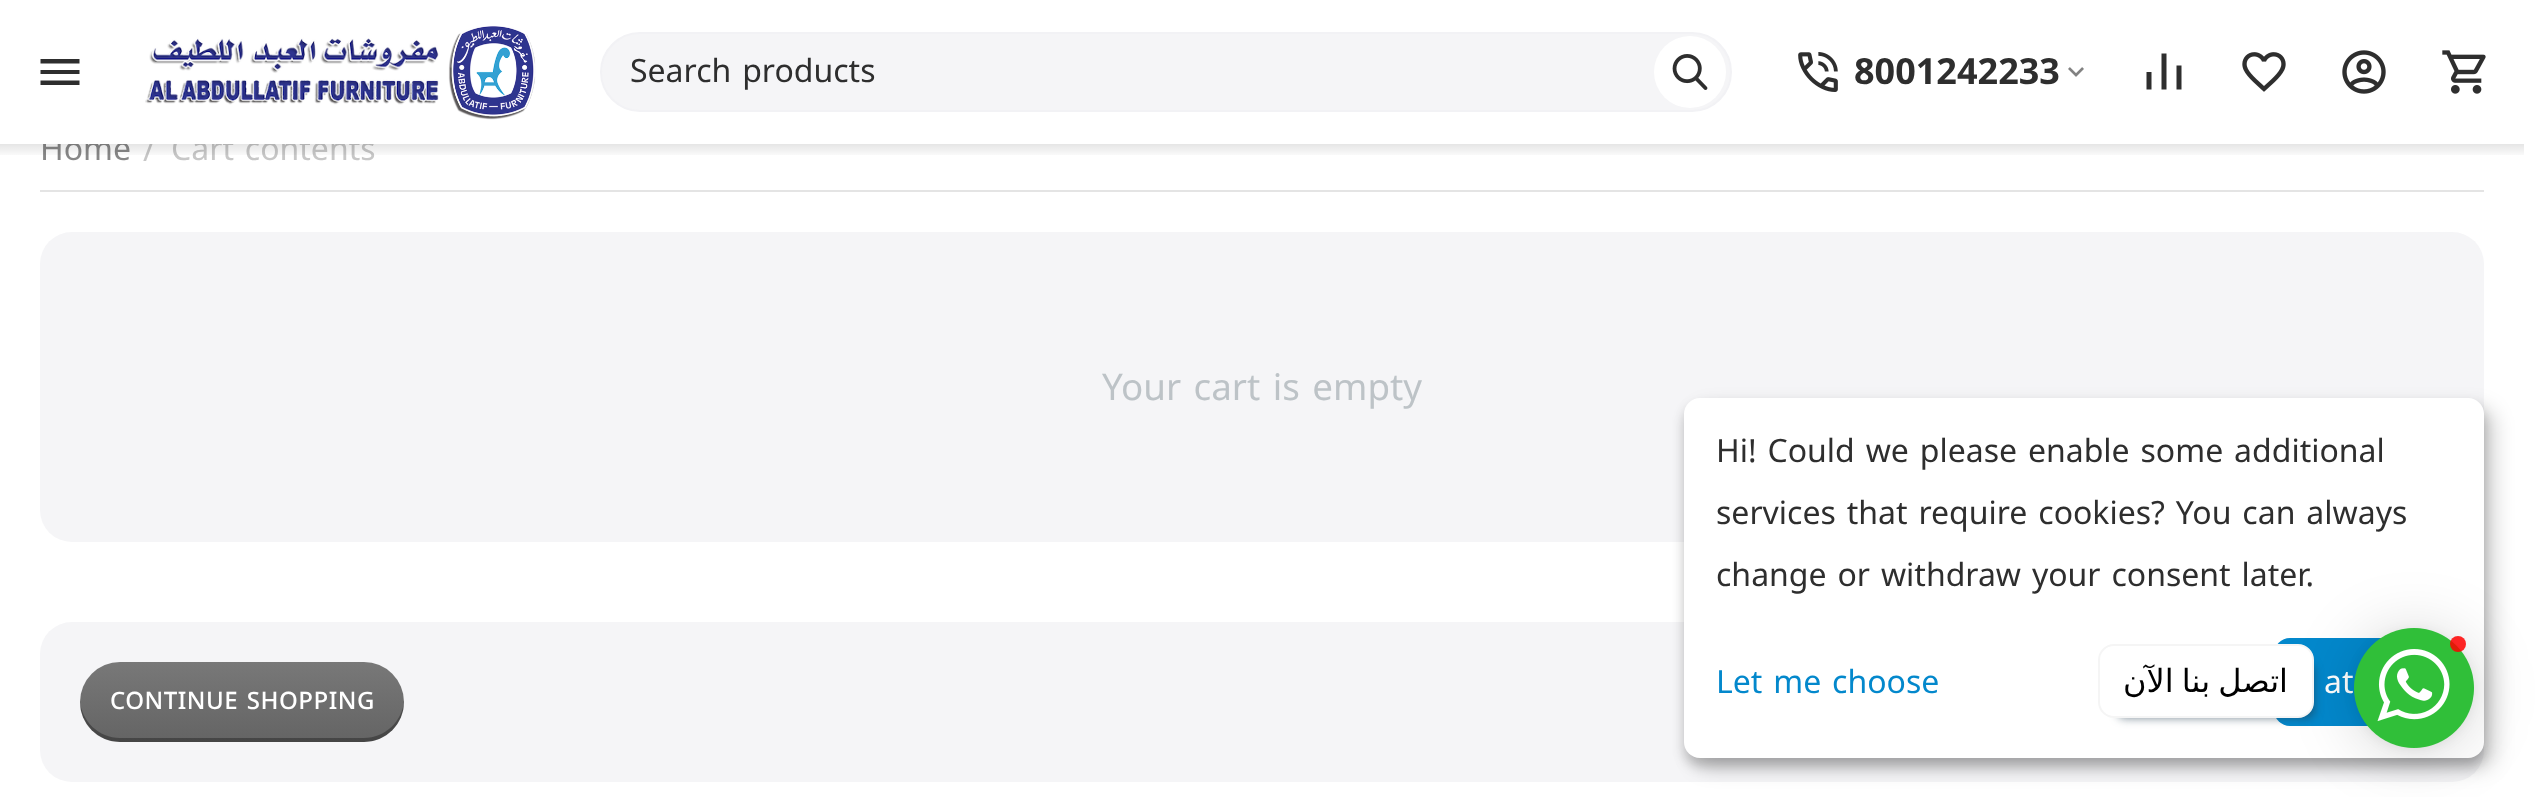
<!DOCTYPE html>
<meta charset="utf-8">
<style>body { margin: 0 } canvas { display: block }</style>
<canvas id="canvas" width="2539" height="797"></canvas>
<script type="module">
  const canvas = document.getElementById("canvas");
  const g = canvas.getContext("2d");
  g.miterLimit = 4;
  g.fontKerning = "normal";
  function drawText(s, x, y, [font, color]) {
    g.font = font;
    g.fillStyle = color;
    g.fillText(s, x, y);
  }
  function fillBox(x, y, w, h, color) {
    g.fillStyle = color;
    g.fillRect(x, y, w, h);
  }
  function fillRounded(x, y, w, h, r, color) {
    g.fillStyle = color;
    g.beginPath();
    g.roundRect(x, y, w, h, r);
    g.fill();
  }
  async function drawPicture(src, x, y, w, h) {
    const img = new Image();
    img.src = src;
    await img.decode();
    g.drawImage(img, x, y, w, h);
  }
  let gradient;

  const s1 = ["32px Noto Kufi Arabic", "#878787"];
  const s2 = ["32px Noto Kufi Arabic", "#C7C7C7"];
  const s3 = ["32px Noto Kufi Arabic", "#2E2E2E"];
  const s4 = ["bold 36px Noto Kufi Arabic", "#2E2E2E"];
  const s5 = ["36.75px Noto Kufi Arabic", "#BDC3C7"];
  const s6 = ["500 24px Noto Kufi Arabic", "#FFFFFF"];
  const s7 = ["32px Noto Kufi Arabic", "#0388CC"];
  const s8 = ["32px Noto Kufi Arabic", "#FFFFFF"];
  const s9 = ["32px DejaVu Sans", "#000000"];

  fillBox(0, 0, 2539, 797, "#FFFFFF");
  drawText("Home", 40, 160, s1);
  drawText("/", 143, 161, s2);
  drawText("Cart contents", 171, 160, s2);
  fillBox(43, 136, 331, 8, "#FFFFFF");
  g.fillStyle = "#2E2E2E";
  g.beginPath();
  g.moveTo(40.5, 85);
  g.lineTo(79.5, 85);
  g.lineTo(79.5, 80.5);
  g.lineTo(40.5, 80.5);
  g.closePath();
  g.moveTo(40.5, 74);
  g.lineTo(79.5, 74);
  g.lineTo(79.5, 70);
  g.lineTo(40.5, 70);
  g.closePath();
  g.moveTo(40.5, 59);
  g.lineTo(40.5, 63.5);
  g.lineTo(79.5, 63.5);
  g.lineTo(79.5, 59);
  g.closePath();
  g.fill();
  await drawPicture("pic1.png", 145, 26, 391, 94);
  g.fillStyle = "#F5F5F7";
  g.beginPath();
  g.roundRect(601, 33, 1130, 78, 39);
  g.fill();
  g.strokeStyle = "#F2F2F5";
  g.lineWidth = 2;
  g.stroke();
  drawText("Search products", 630, 82, s3);
  g.fillStyle = "#FFFFFF";
  g.beginPath();
  g.arc(1690, 72, 36, 0, Math.PI * 2);
  g.fill();
  await drawPicture("pic2.png", 1672, 54, 36, 36);
  await drawPicture("pic3.png", 1798, 52, 40, 40);
  drawText("8001242233", 1854, 84, s4);
  await drawPicture("pic4.png", 2068, 67, 16, 10);
  g.beginPath();
  g.moveTo(2146.5, 72);
  g.lineTo(2151.5, 72);
  g.lineTo(2151.5, 89.5);
  g.lineTo(2146.5, 89.5);
  g.closePath();
  g.moveTo(2161.5, 53.5);
  g.lineTo(2166.5, 53.5);
  g.lineTo(2166.5, 89.5);
  g.lineTo(2161.5, 89.5);
  g.closePath();
  g.moveTo(2176.5, 65.5);
  g.lineTo(2181.5, 65.5);
  g.lineTo(2181.5, 89.5);
  g.lineTo(2176.5, 89.5);
  g.closePath();
  g.fill();
  await drawPicture("pic5.png", 2242, 52, 44, 40);
  await drawPicture("pic6.png", 2342, 50, 44, 44);
  await drawPicture("pic7.png", 2442, 50, 44, 44);
  gradient = g.createLinearGradient(1262, 144, 1262, 158);
  gradient.addColorStop(0, "rgba(0, 0, 0, 0.1)");
  gradient.addColorStop(1, "rgba(0, 0, 0, 0)");
  g.fillStyle = gradient;
  g.fillRect(0, 144, 2524, 11);
  fillBox(40, 190, 2444, 2, "#E4E4E4");
  fillRounded(40, 232, 2444, 310, 32, "#F5F5F7");
  drawText("Your cart is empty", 1102, 400, s5);
  fillRounded(40, 622, 2444, 160, 32, "#F5F5F7");
  gradient = g.createLinearGradient(242, 742, 242, 662);
  gradient.addColorStop(0, "#646464");
  gradient.addColorStop(1, "#787878");
  g.fillStyle = gradient;
  g.beginPath();
  g.roundRect(80, 662, 324, 80, 40);
  g.fill();
  g.fillStyle = "rgba(0, 0, 0, 0.3)";
  g.beginPath();
  g.moveTo(80, 700);
  g.lineTo(80, 702);
  g.bezierCurveTo(80, 724, 98, 742, 120, 742);
  g.lineTo(364, 742);
  g.bezierCurveTo(386, 742, 404, 724, 404, 702);
  g.lineTo(404, 700);
  g.bezierCurveTo(403, 721, 385, 738, 364, 738);
  g.lineTo(120, 738);
  g.bezierCurveTo(99, 738, 81, 721, 80, 700);
  g.closePath();
  g.fill();
  g.letterSpacing = "0.5px";
  drawText("CONTINUE SHOPPING", 110, 709, s6);
  g.fillStyle = "rgba(0, 0, 0, 0.19)";
  g.filter = "blur(10px)";
  g.beginPath();
  g.roundRect(1694, 408, 800, 360, 16);
  g.fill();
  g.filter = "none";
  g.fillStyle = "rgba(0, 0, 0, 0.2)";
  g.filter = "blur(6px)";
  g.beginPath();
  g.roundRect(1684, 406, 800, 360, 16);
  g.fill();
  g.filter = "none";
  fillRounded(1684, 398, 800, 360, 16, "#FFFFFF");
  g.letterSpacing = "0px";
  drawText("Hi! Could we please enable some additional", 1716, 462, s3);
  drawText("services that require cookies? You can always", 1716, 524, s3);
  drawText("change or withdraw your consent later.", 1716, 586, s3);
  drawText("Let me choose", 1716, 693, s7);
  fillRounded(2274, 638, 162, 88, 16, "#0388CC");
  drawText("at", 2324, 693, s8);
  g.fillStyle = "rgba(34, 60, 80, 0.6)";
  g.filter = "blur(5px)";
  g.beginPath();
  g.roundRect(2118, 664, 196, 54, 6);
  g.fill();
  g.filter = "none";
  g.fillStyle = "rgba(0, 0, 0, 0.16)";
  g.filter = "blur(32px)";
  g.beginPath();
  g.roundRect(2354, 632, 120, 120, 60);
  g.fill();
  g.filter = "none";
  g.fillStyle = "#FFFFFF";
  g.beginPath();
  g.roundRect(2099, 645, 214, 72, 15);
  g.fill();
  g.strokeStyle = "#F5F5F5";
  g.stroke();
  g.wordSpacing = "-2px";
  g.direction = "rtl";
  drawText("اتصل بنا الآن", 2288, 692, s9);
  g.fillStyle = "rgba(0, 0, 0, 0.06)";
  g.filter = "blur(6px)";
  g.beginPath();
  g.roundRect(2354, 630, 120, 120, 60);
  g.fill();
  g.filter = "none";
  await drawPicture("pic8.png", 2354, 628, 120, 120);
  g.fillStyle = "rgba(255, 0, 0, 0.85)";
  g.beginPath();
  g.arc(2458, 644, 8, 0, Math.PI * 2);
  g.fill();
</script>
